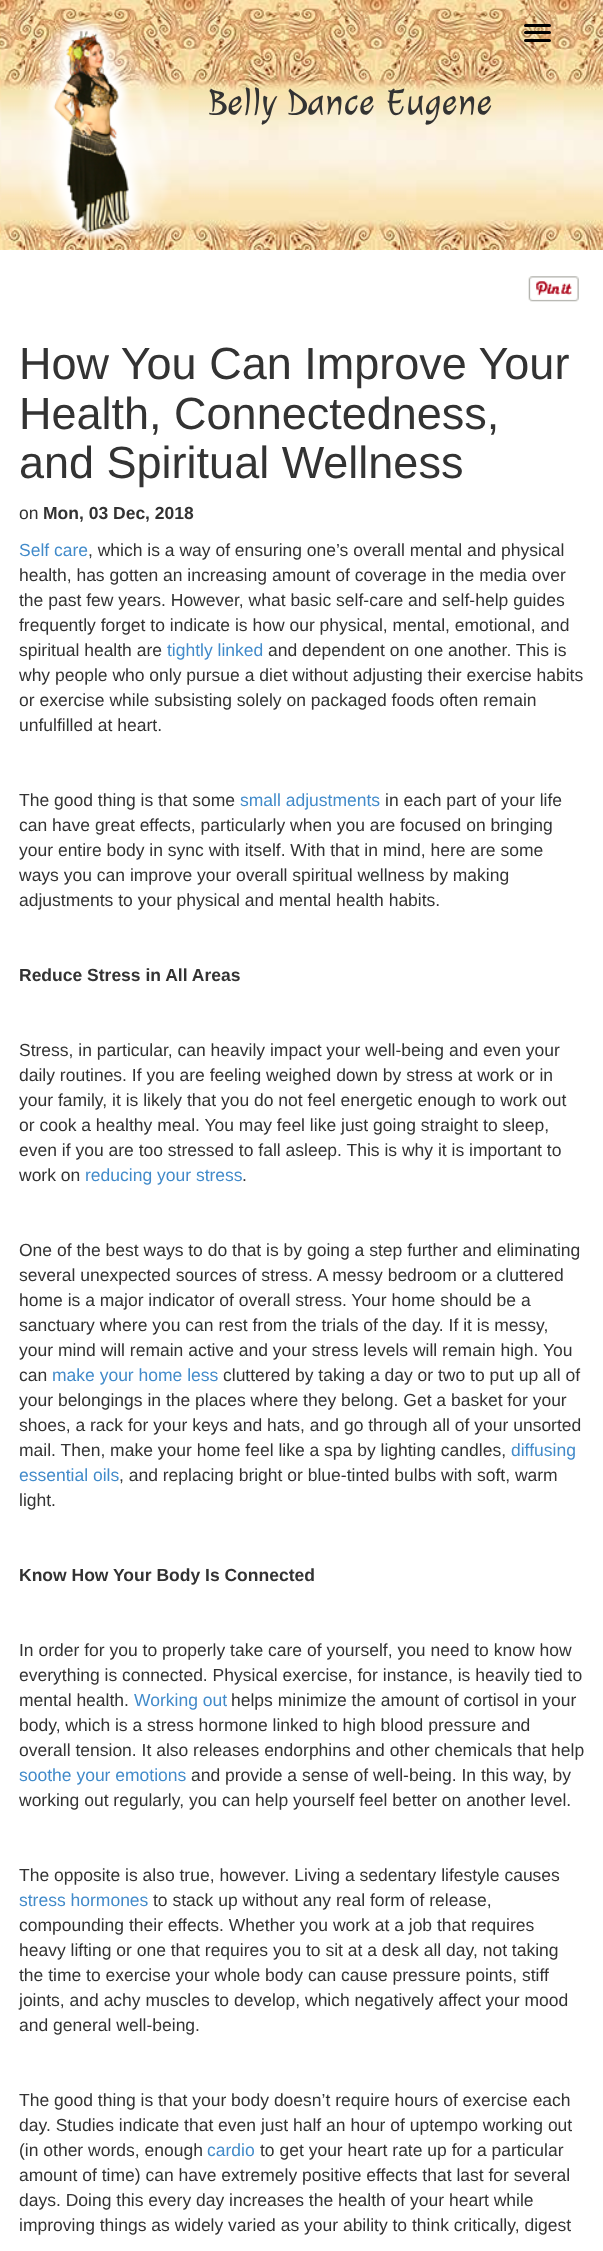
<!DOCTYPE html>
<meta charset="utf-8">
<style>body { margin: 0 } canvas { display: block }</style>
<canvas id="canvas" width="603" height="2251"></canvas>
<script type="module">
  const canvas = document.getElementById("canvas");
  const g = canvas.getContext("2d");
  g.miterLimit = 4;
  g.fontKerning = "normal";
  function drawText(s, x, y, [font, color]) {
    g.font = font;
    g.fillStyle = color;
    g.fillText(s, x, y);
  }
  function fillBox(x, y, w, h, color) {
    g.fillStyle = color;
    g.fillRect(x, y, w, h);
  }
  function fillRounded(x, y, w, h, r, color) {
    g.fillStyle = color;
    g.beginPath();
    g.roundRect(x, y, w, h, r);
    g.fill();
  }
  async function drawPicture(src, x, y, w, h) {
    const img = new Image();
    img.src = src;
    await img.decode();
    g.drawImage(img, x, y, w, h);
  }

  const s1 = ["37.5px Julee", "#333333"];
  const s2 = ["45px Liberation Sans", "#333333"];
  const s3 = ["17.5px Liberation Sans", "#333333"];
  const s4 = ["bold 17.5px Liberation Sans", "#333333"];
  const s5 = ["17.5px Liberation Sans", "#428BCA"];

  fillBox(0, 0, 603, 2251, "#FFFFFF");
  await drawPicture("pic1.png", 0, 0, 603, 250);
  await drawPicture("pic2.png", 20, 20, 152, 219);
  fillRounded(524, 24, 27, 3, 1.5, "#000000");
  fillRounded(524, 31, 27, 3, 1.5, "#000000");
  fillRounded(524, 39, 27, 3, 1.5, "#000000");
  drawText("Belly Dance Eugene", 208, 114, s1);
  await drawPicture("pic3.png", 528, 276, 51, 26);
  drawText("How You Can Improve Your", 19, 379, s2);
  drawText("Health, Connectedness,", 19, 429, s2);
  drawText("and Spiritual Wellness", 19, 478, s2);
  drawText("on", 19, 519, s3);
  drawText("Mon, 03 Dec, 2018", 43, 519, s4);
  drawText("Self care", 19, 556, s5);
  drawText(", which is a way of ensuring one’s overall mental and physical", 88, 556, s3);
  drawText("health, has gotten an increasing amount of coverage in the media over", 19, 581, s3);
  drawText("the past few years. However, what basic self-care and self-help guides", 19, 606, s3);
  drawText("frequently forget to indicate is how our physical, mental, emotional, and", 19, 631, s3);
  drawText("spiritual health are", 19, 656, s3);
  drawText("tightly linked", 167, 656, s5);
  drawText("and dependent on one another. This is", 268, 656, s3);
  drawText("why people who only pursue a diet without adjusting their exercise habits", 19, 681, s3);
  drawText("or exercise while subsisting solely on packaged foods often remain", 19, 706, s3);
  drawText("unfulfilled at heart.", 19, 731, s3);
  drawText("The good thing is that some", 19, 806, s3);
  drawText("small adjustments", 240, 806, s5);
  drawText("in each part of your life", 385, 806, s3);
  drawText("can have great effects, particularly when you are focused on bringing", 19, 831, s3);
  drawText("your entire body in sync with itself. With that in mind, here are some", 19, 856, s3);
  drawText("ways you can improve your overall spiritual wellness by making", 19, 881, s3);
  drawText("adjustments to your physical and mental health habits.", 19, 906, s3);
  drawText("Reduce Stress in All Areas", 19, 981, s4);
  drawText("Stress, in particular, can heavily impact your well-being and even your", 19, 1056, s3);
  drawText("daily routines. If you are feeling weighed down by stress at work or in", 19, 1081, s3);
  drawText("your family, it is likely that you do not feel energetic enough to work out", 19, 1106, s3);
  drawText("or cook a healthy meal. You may feel like just going straight to sleep,", 19, 1131, s3);
  drawText("even if you are too stressed to fall asleep. This is why it is important to", 19, 1156, s3);
  drawText("work on", 19, 1181, s3);
  drawText("reducing your stress", 85, 1181, s5);
  drawText(".", 242, 1181, s3);
  drawText("One of the best ways to do that is by going a step further and eliminating", 19, 1256, s3);
  drawText("several unexpected sources of stress. A messy bedroom or a cluttered", 19, 1281, s3);
  drawText("home is a major indicator of overall stress. Your home should be a", 19, 1306, s3);
  drawText("sanctuary where you can rest from the trials of the day. If it is messy,", 19, 1331, s3);
  drawText("your mind will remain active and your stress levels will remain high. You", 19, 1356, s3);
  drawText("can", 19, 1381, s3);
  drawText("make your home less", 52, 1381, s5);
  drawText("cluttered by taking a day or two to put up all of", 223, 1381, s3);
  drawText("your belongings in the places where they belong. Get a basket for your", 19, 1406, s3);
  drawText("shoes, a rack for your keys and hats, and go through all of your unsorted", 19, 1431, s3);
  drawText("mail. Then, make your home feel like a spa by lighting candles,", 19, 1456, s3);
  drawText("diffusing", 511, 1456, s5);
  drawText("essential oils", 19, 1481, s5);
  drawText(", and replacing bright or blue-tinted bulbs with soft, warm", 119, 1481, s3);
  drawText("light.", 19, 1506, s3);
  drawText("Know How Your Body Is Connected", 19, 1581, s4);
  drawText("In order for you to properly take care of yourself, you need to know how", 19, 1656, s3);
  drawText("everything is connected. Physical exercise, for instance, is heavily tied to", 19, 1681, s3);
  drawText("mental health.", 19, 1706, s3);
  drawText("Working out", 134, 1706, s5);
  drawText("helps minimize the amount of cortisol in your", 231, 1706, s3);
  drawText("body, which is a stress hormone linked to high blood pressure and", 19, 1731, s3);
  drawText("overall tension. It also releases endorphins and other chemicals that help", 19, 1756, s3);
  drawText("soothe your emotions", 19, 1781, s5);
  drawText("and provide a sense of well-being. In this way, by", 191, 1781, s3);
  drawText("working out regularly, you can help yourself feel better on another level.", 19, 1806, s3);
  drawText("The opposite is also true, however. Living a sedentary lifestyle causes", 19, 1881, s3);
  drawText("stress hormones", 19, 1906, s5);
  drawText("to stack up without any real form of release,", 153, 1906, s3);
  drawText("compounding their effects. Whether you work at a job that requires", 19, 1931, s3);
  drawText("heavy lifting or one that requires you to sit at a desk all day, not taking", 19, 1956, s3);
  drawText("the time to exercise your whole body can cause pressure points, stiff", 19, 1981, s3);
  drawText("joints, and achy muscles to develop, which negatively affect your mood", 19, 2006, s3);
  drawText("and general well-being.", 19, 2031, s3);
  drawText("The good thing is that your body doesn’t require hours of exercise each", 19, 2106, s3);
  drawText("day. Studies indicate that even just half an hour of uptempo working out", 19, 2131, s3);
  drawText("(in other words, enough", 19, 2156, s3);
  drawText("cardio", 207, 2156, s5);
  drawText("to get your heart rate up for a particular", 260, 2156, s3);
  drawText("amount of time) can have extremely positive effects that last for several", 19, 2181, s3);
  drawText("days. Doing this every day increases the health of your heart while", 19, 2206, s3);
  drawText("improving things as widely varied as your ability to think critically, digest", 19, 2231, s3);
</script>
